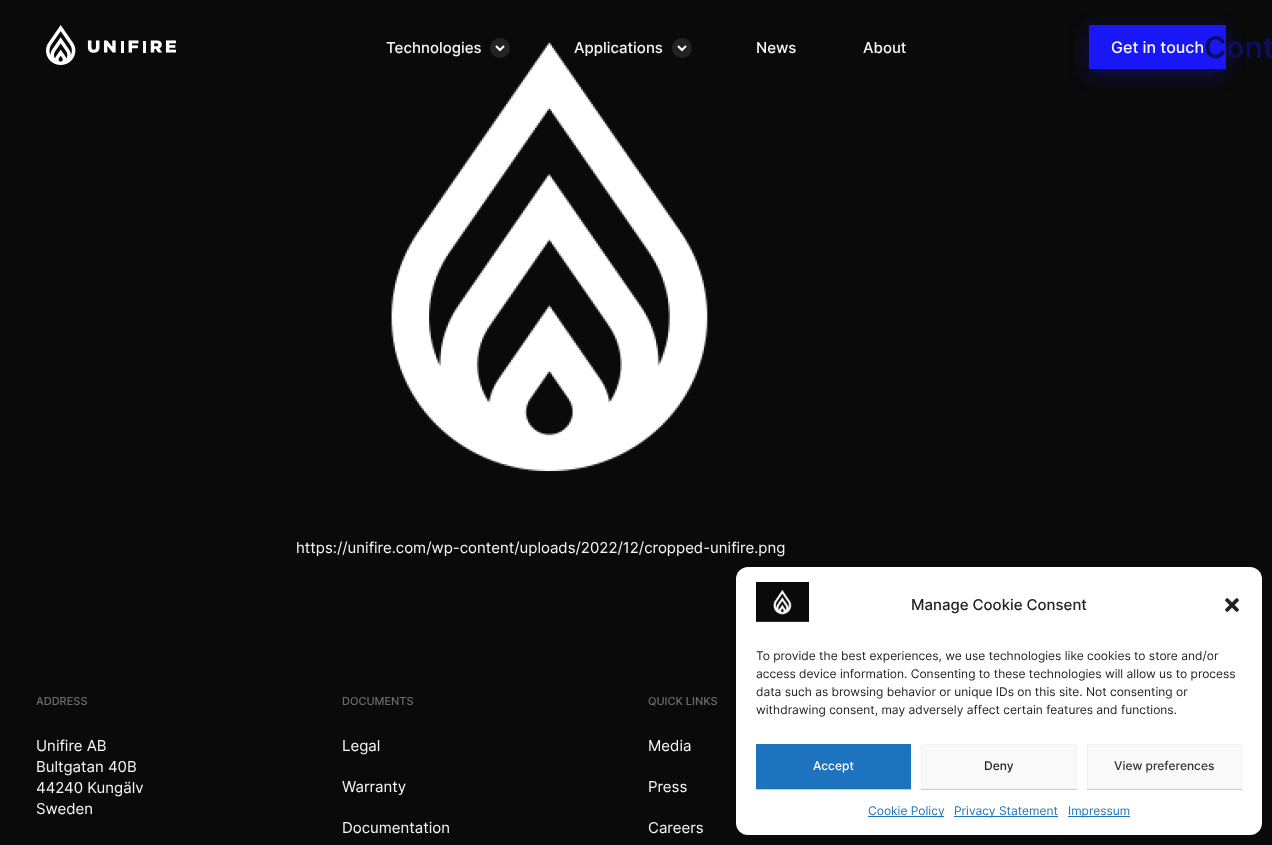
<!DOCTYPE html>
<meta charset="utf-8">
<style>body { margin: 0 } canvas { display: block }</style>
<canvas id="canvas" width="1272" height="845"></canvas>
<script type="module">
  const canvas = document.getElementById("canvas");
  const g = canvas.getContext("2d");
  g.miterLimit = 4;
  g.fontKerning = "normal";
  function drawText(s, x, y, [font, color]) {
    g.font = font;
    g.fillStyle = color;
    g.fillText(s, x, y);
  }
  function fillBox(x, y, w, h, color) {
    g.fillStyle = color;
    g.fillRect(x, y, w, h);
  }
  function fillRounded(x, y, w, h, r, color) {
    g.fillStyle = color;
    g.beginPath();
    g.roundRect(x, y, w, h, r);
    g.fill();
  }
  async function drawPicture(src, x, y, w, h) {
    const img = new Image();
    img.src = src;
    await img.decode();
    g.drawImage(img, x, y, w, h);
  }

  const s1 = ["500 15px Inter", "#F7F7F7"];
  const s2 = ["500 16px Inter", "#F7F7F7"];
  const s3 = ["600 30px Inter", "#0F0E5C"];
  const s4 = ["15px Inter", "#F7F7F7"];
  const s5 = ["500 11px Inter", "#6C6C6C"];
  const s6 = ["500 15px Inter", "#222222"];
  const s7 = ["12px Inter", "#222222"];
  const s8 = ["500 12px Inter", "#FFFFFF"];
  const s9 = ["500 12px Inter", "#222222"];
  const s10 = ["500 12px Inter", "#333333"];
  const s11 = ["12px Inter", "#1E73BE"];

  fillBox(0, 0, 1272, 845, "#0A0A0A");
  await drawPicture("pic1.png", 46, 25, 130, 40);
  await drawPicture("pic2.png", 391, 42, 317, 430);
  drawText("Technologies", 386, 53, s1);
  g.fillStyle = "#232323";
  g.beginPath();
  g.arc(500, 48, 10, 0, Math.PI * 2);
  g.fill();
  g.beginPath();
  g.moveTo(496, 46);
  g.lineTo(500, 50);
  g.lineTo(504, 46);
  g.strokeStyle = "#FFFFFF";
  g.lineWidth = 2.1;
  g.stroke();
  drawText("Applications", 574, 53, s1);
  g.fillStyle = "#232323";
  g.beginPath();
  g.arc(682, 48, 10, 0, Math.PI * 2);
  g.fill();
  g.beginPath();
  g.moveTo(678, 46);
  g.lineTo(682, 50);
  g.lineTo(686, 46);
  g.stroke();
  drawText("News", 756, 53, s1);
  drawText("About", 863, 53, s1);
  g.fillStyle = "rgba(25, 22, 248, 0.34)";
  g.filter = "blur(9.5px)";
  g.beginPath();
  g.rect(1089, 30, 137, 44);
  g.fill();
  g.filter = "none";
  fillBox(1089, 25, 137, 44, "#1916F8");
  drawText("Get in touch", 1111, 53, s2);
  drawText("Cont", 1204, 58, s3);
  drawText("https://unifire.com/wp-content/uploads/2022/12/cropped-unifire.png", 296, 553, s4);
  drawText("ADDRESS", 36, 705, s5);
  drawText("Unifire AB", 36, 751, s4);
  drawText("Bultgatan 40B", 36, 772, s4);
  drawText("44240 Kungälv", 36, 793, s4);
  drawText("Sweden", 36, 814, s4);
  drawText("DOCUMENTS", 342, 705, s5);
  drawText("Legal", 342, 751, s4);
  drawText("Warranty", 342, 792, s4);
  drawText("Documentation", 342, 833, s4);
  drawText("QUICK LINKS", 648, 705, s5);
  drawText("Media", 648, 751, s4);
  drawText("Press", 648, 792, s4);
  drawText("Careers", 648, 833, s4);
  fillRounded(736, 567, 526, 268, 12, "#FFFFFF");
  await drawPicture("pic3.png", 756, 582, 53, 40);
  drawText("Manage Cookie Consent", 911, 610, s6);
  await drawPicture("pic4.png", 1225, 598, 14, 14);
  drawText("To provide the best experiences, we use technologies like cookies to store and/or", 756, 660, s7);
  drawText("access device information. Consenting to these technologies will allow us to process", 756, 678, s7);
  drawText("data such as browsing behavior or unique IDs on this site. Not consenting or", 756, 696, s7);
  drawText("withdrawing consent, may adversely affect certain features and functions.", 756, 714, s7);
  g.fillStyle = "rgba(0, 0, 0, 0.2)";
  g.filter = "blur(0.5px)";
  g.beginPath();
  g.rect(756, 745, 155, 45);
  g.fill();
  g.filter = "none";
  fillBox(756, 744, 155, 45, "#1E73BE");
  drawText("Accept", 813, 770, s8);
  g.fillStyle = "rgba(0, 0, 0, 0.2)";
  g.filter = "blur(0.5px)";
  g.beginPath();
  g.rect(921, 745, 156, 45);
  g.fill();
  g.filter = "none";
  g.fillStyle = "#F9F9F9";
  g.beginPath();
  g.rect(921.5, 744.5, 155, 44);
  g.fill();
  g.strokeStyle = "#F2F2F2";
  g.lineWidth = 1;
  g.stroke();
  drawText("Deny", 984, 770, s9);
  g.fillStyle = "rgba(0, 0, 0, 0.2)";
  g.filter = "blur(0.5px)";
  g.beginPath();
  g.rect(1087, 745, 155, 45);
  g.fill();
  g.filter = "none";
  g.fillStyle = "#F9F9F9";
  g.beginPath();
  g.rect(1087.5, 744.5, 154, 44);
  g.fill();
  g.stroke();
  drawText("View preferences", 1114, 770, s10);
  fillBox(868, 816, 76, 1, "#1E73BE");
  drawText("Cookie Policy", 868, 815, s11);
  fillBox(954, 816, 104, 1, "#1E73BE");
  drawText("Privacy Statement", 954, 815, s11);
  fillBox(1068, 816, 62, 1, "#1E73BE");
  drawText("Impressum", 1068, 815, s11);
</script>
